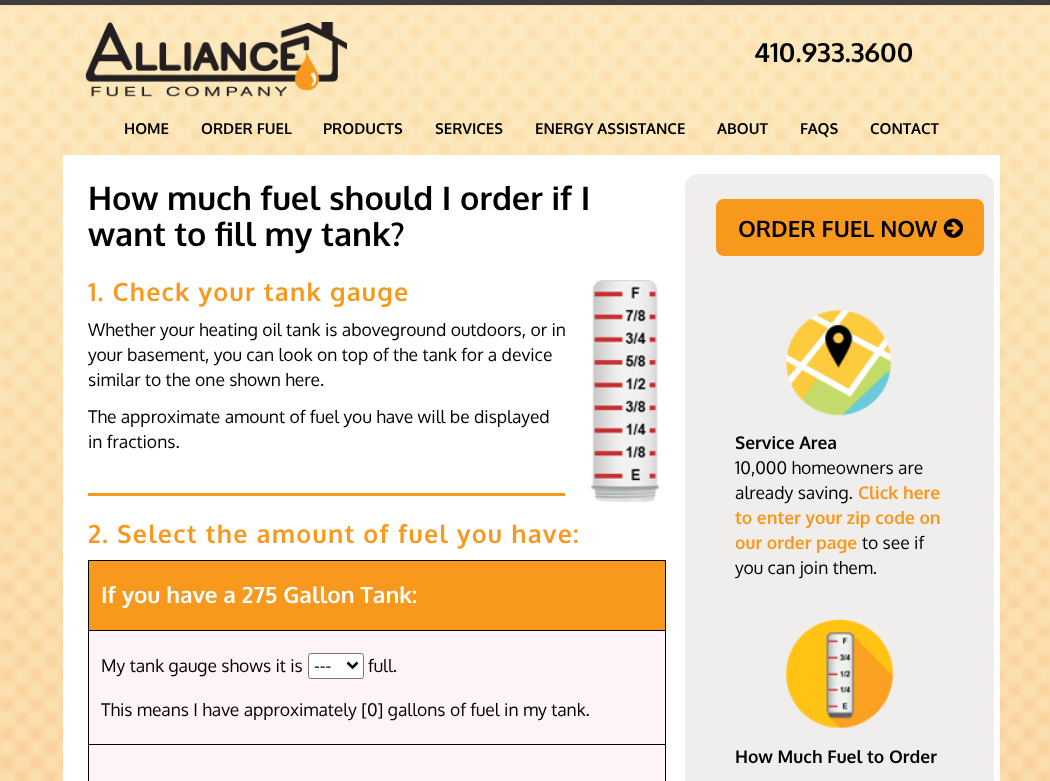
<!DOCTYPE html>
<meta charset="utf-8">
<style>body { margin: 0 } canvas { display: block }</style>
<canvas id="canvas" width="1050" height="781"></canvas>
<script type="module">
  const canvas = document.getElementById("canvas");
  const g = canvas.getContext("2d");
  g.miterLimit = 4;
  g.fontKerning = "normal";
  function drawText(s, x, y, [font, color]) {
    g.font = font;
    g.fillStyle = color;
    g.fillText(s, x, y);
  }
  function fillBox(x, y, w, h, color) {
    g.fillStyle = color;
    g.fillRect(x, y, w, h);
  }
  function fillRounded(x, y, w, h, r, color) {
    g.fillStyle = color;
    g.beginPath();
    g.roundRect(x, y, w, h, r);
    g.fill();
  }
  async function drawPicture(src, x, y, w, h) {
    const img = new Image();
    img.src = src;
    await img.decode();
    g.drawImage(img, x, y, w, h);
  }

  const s1 = ["bold 26.25px Oxygen", "#000000"];
  const s2 = ["bold 15px Oxygen", "#000000"];
  const s3 = ["bold 32.5px Oxygen", "#000000"];
  const s4 = ["bold 25px Oxygen", "#F8981D"];
  const s5 = ["17.5px Oxygen", "#000000"];
  const s6 = ["bold 22.5px Oxygen", "#FEFFFF"];
  const s7 = ["bold 22.5px Oxygen", "#000000"];
  const s8 = ["bold 17.5px Oxygen", "#000000"];
  const s9 = ["bold 17.5px Oxygen", "#F8981D"];

  fillBox(0, 0, 1050, 781, "#FFFFFF");
  await drawPicture("pic1.png", 0, 5, 1050, 776);
  fillBox(0, 0, 1050, 5, "#3D3D3D");
  await drawPicture("pic2.png", 85, 22, 262, 75);
  drawText("410.933.3600", 754, 62, s1);
  drawText("HOME", 124, 134, s2);
  drawText("ORDER FUEL", 201, 134, s2);
  drawText("PRODUCTS", 323, 134, s2);
  drawText("SERVICES", 435, 134, s2);
  drawText("ENERGY ASSISTANCE", 535, 134, s2);
  drawText("ABOUT", 717, 134, s2);
  drawText("FAQS", 800, 134, s2);
  drawText("CONTACT", 870, 134, s2);
  fillBox(63, 155, 937, 626, "#FFFFFF");
  drawText("How much fuel should I order if I", 88, 210, s3);
  drawText("want to fill my tank?", 88, 246, s3);
  g.letterSpacing = "1.25px";
  drawText("1. Check your tank gauge", 88, 301, s4);
  await drawPicture("pic3.png", 591, 280, 68, 223);
  g.letterSpacing = "0px";
  drawText("Whether your heating oil tank is aboveground outdoors, or in", 88, 336, s5);
  drawText("your basement, you can look on top of the tank for a device", 88, 361, s5);
  drawText("similar to the one shown here.", 88, 386, s5);
  drawText("The approximate amount of fuel you have will be displayed", 88, 423, s5);
  drawText("in fractions.", 88, 448, s5);
  fillBox(88, 493, 477, 3, "#F8981D");
  g.letterSpacing = "1.25px";
  drawText("2. Select the amount of fuel you have:", 88, 543, s4);
  fillBox(89, 631, 576, 150, "#FEF3F7");
  g.strokeStyle = "#000000";
  g.strokeRect(88.5, 560.5, 577, 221);
  fillBox(89, 561, 576, 69, "#F8981D");
  g.letterSpacing = "0px";
  drawText("If you have a 275 Gallon Tank:", 101, 603, s6);
  fillBox(89, 630, 576, 1, "#000000");
  drawText("My tank gauge shows it is", 101, 672, s5);
  g.fillStyle = "#FFFFFF";
  g.beginPath();
  g.roundRect(308.5, 653.5, 55, 25, 2);
  g.fill();
  g.strokeStyle = "#767676";
  g.stroke();
  g.beginPath();
  g.moveTo(347.5, 662.5);
  g.lineTo(352.5, 667.5);
  g.lineTo(357.5, 662.5);
  g.strokeStyle = "#000000";
  g.lineWidth = 2.5;
  g.stroke();
  drawText("---", 314, 672, s5);
  drawText("full.", 368, 672, s5);
  drawText("This means I have approximately [0] gallons of fuel in my tank.", 101, 716, s5);
  fillBox(89, 744, 576, 1, "#000000");
  fillRounded(685, 174, 309, 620, 13, "#EFEEED");
  fillRounded(716, 199, 268, 57, 8, "#F8981D");
  drawText("ORDER FUEL NOW", 738, 237, s7);
  await drawPicture("pic4.png", 943, 218, 20, 20);
  await drawPicture("pic5.png", 786, 309, 106, 107);
  drawText("Service Area", 735, 449, s8);
  drawText("10,000 homeowners are", 735, 474, s5);
  drawText("already saving.", 735, 499, s5);
  drawText("Click here", 858, 499, s9);
  drawText("to enter your zip code on", 735, 524, s9);
  drawText("our order page", 735, 549, s9);
  drawText("to see if", 862, 549, s5);
  drawText("you can join them.", 735, 574, s5);
  await drawPicture("pic6.png", 786, 618, 108, 111);
  drawText("How Much Fuel to Order", 735, 763, s8);
</script>
